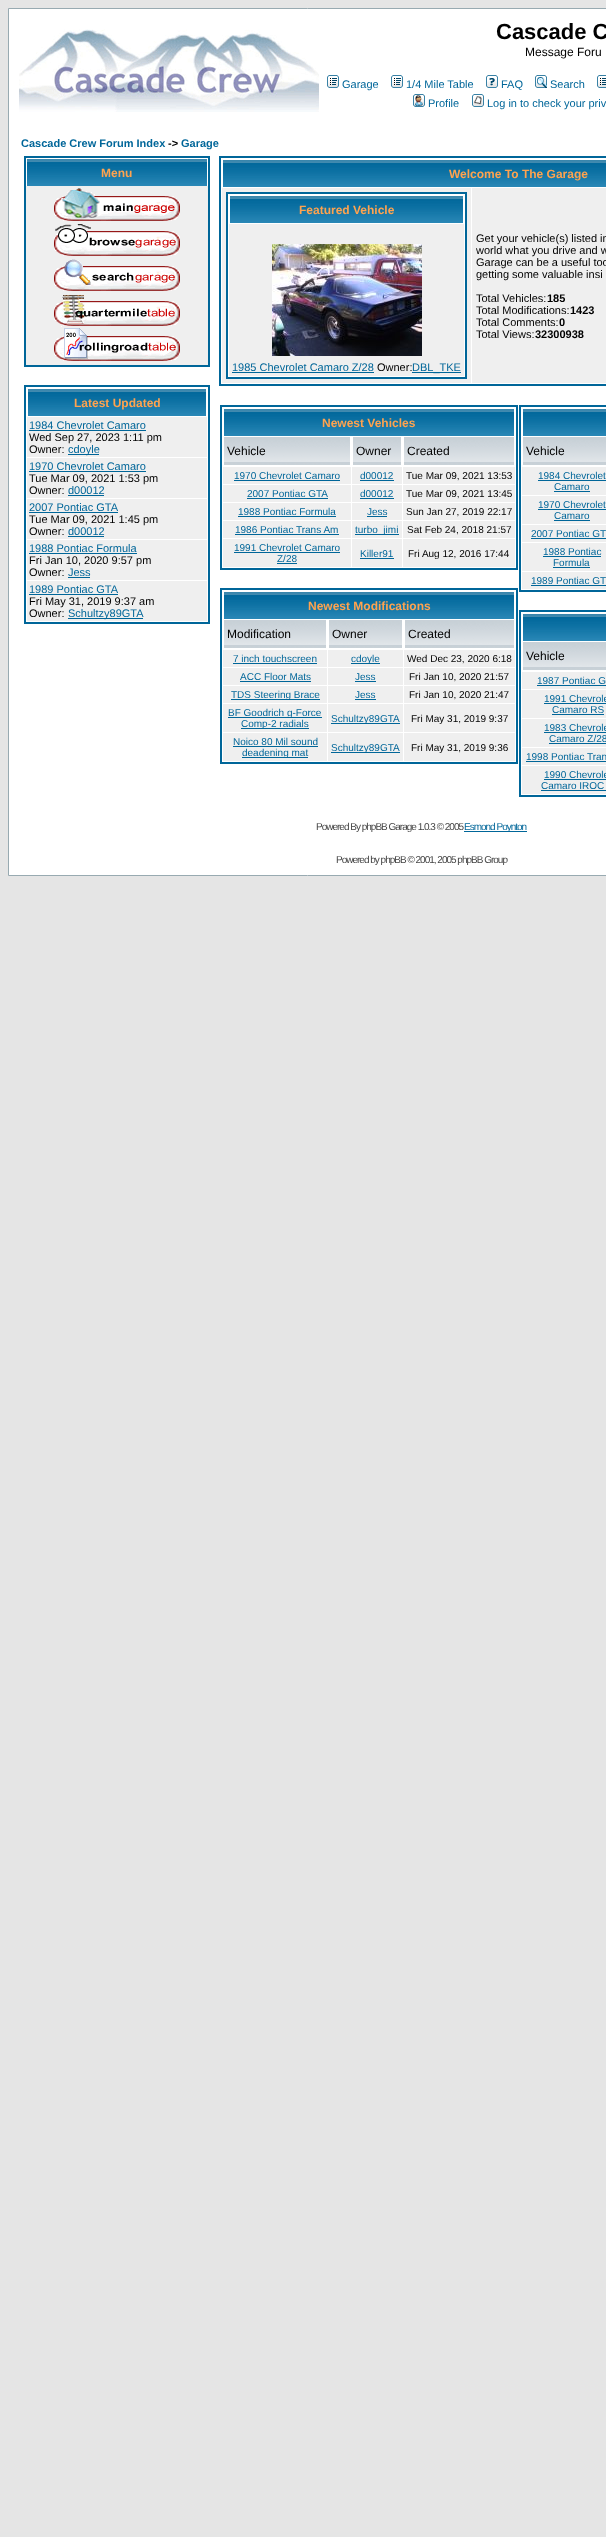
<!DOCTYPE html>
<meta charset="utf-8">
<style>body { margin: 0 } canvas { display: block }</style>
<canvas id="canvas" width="606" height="2537"></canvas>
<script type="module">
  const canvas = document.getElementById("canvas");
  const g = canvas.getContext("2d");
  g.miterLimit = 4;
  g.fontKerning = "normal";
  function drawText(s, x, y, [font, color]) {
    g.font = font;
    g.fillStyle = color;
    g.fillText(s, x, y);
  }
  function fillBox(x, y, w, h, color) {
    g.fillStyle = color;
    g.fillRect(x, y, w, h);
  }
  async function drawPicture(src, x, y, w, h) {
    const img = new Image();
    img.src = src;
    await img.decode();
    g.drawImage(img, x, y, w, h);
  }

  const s1 = ["bold 22px Liberation Sans", "#000000"];
  const s2 = ["12px Liberation Sans", "#000000"];
  const s3 = ["11px Liberation Sans", "#006699"];
  const s4 = ["bold 11px Liberation Sans", "#006699"];
  const s5 = ["bold 11px Liberation Sans", "#000000"];
  const s6 = ["bold 12px Liberation Sans", "#FFA34F"];
  const s7 = ["11px Liberation Sans", "#000000"];
  const s8 = ["10px Liberation Sans", "#006699"];
  const s9 = ["10px Liberation Sans", "#000000"];
  const s10 = ["10px Liberation Sans", "#444444"];

  fillBox(0, 0, 606, 2537, "#E5E5E5");
  g.fillStyle = "#FFFFFF";
  g.beginPath();
  g.rect(8.5, 8.5, 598, 867);
  g.fill();
  g.strokeStyle = "#98AAB1";
  g.stroke();
  await drawPicture("pic1.png", 19, 29, 300, 83);
  drawText("Cascade C", 496, 39, s1);
  drawText("Message Foru", 525, 56, s2);
  await drawPicture("pic2.png", 327, 75, 12, 13);
  drawText("Garage", 342, 88, s3);
  await drawPicture("pic2.png", 391, 75, 12, 13);
  drawText("1/4 Mile Table", 406, 88, s3);
  await drawPicture("pic3.png", 486, 75, 12, 13);
  drawText("FAQ", 501, 88, s3);
  await drawPicture("pic4.png", 535, 75, 12, 13);
  drawText("Search", 550, 88, s3);
  await drawPicture("pic5.png", 597, 75, 9, 13);
  await drawPicture("pic6.png", 413, 94, 12, 13);
  drawText("Profile", 428, 107, s3);
  await drawPicture("pic7.png", 472, 94, 12, 13);
  drawText("Log in to check your priv", 487, 107, s3);
  drawText("Cascade Crew Forum Index", 21, 147, s4);
  drawText("->", 168, 147, s5);
  drawText("Garage", 181, 147, s4);
  g.strokeStyle = "#006699";
  g.lineWidth = 2;
  g.strokeRect(25, 157, 184, 209);
  await drawPicture("pic8.png", 27, 159, 180, 27);
  drawText("Menu", 101, 177, s6);
  fillBox(26, 186, 182, 179, "#EFEFEF");
  await drawPicture("pic9.png", 54, 188, 126, 33);
  await drawPicture("pic10.png", 54, 224, 126, 32);
  await drawPicture("pic11.png", 54, 259, 126, 32);
  await drawPicture("pic12.png", 54, 295, 126, 32);
  await drawPicture("pic13.png", 54, 328, 126, 33);
  g.strokeRect(25, 386, 184, 237);
  await drawPicture("pic14.png", 28, 389, 178, 27);
  drawText("Latest Updated", 74, 407, s6);
  fillBox(27, 417, 180, 40, "#EFEFEF");
  drawText("1984 Chevrolet Camaro", 29, 429, s3);
  fillBox(29, 430, 117, 1, "#006699");
  drawText("Wed Sep 27, 2023 1:11 pm", 29, 441, s7);
  drawText("Owner:", 29, 453, s7);
  fillBox(68, 454, 31, 1, "#006699");
  drawText("cdoyle", 68, 453, s3);
  fillBox(27, 458, 180, 40, "#EFEFEF");
  drawText("1970 Chevrolet Camaro", 29, 470, s3);
  fillBox(29, 471, 117, 1, "#006699");
  drawText("Tue Mar 09, 2021 1:53 pm", 29, 482, s7);
  drawText("Owner:", 29, 494, s7);
  drawText("d00012", 68, 494, s3);
  fillBox(68, 495, 36, 1, "#006699");
  fillBox(27, 499, 180, 40, "#EFEFEF");
  drawText("2007 Pontiac GTA", 29, 511, s3);
  fillBox(29, 512, 89, 1, "#006699");
  drawText("Tue Mar 09, 2021 1:45 pm", 29, 523, s7);
  drawText("Owner:", 29, 535, s7);
  drawText("d00012", 68, 535, s3);
  fillBox(68, 536, 36, 1, "#006699");
  fillBox(27, 540, 180, 40, "#EFEFEF");
  drawText("1988 Pontiac Formula", 29, 552, s3);
  fillBox(29, 553, 108, 1, "#006699");
  drawText("Fri Jan 10, 2020 9:57 pm", 29, 564, s7);
  drawText("Owner:", 29, 576, s7);
  drawText("Jess", 68, 576, s3);
  fillBox(68, 577, 22, 1, "#006699");
  fillBox(27, 581, 180, 40, "#EFEFEF");
  drawText("1989 Pontiac GTA", 29, 593, s3);
  fillBox(29, 594, 89, 1, "#006699");
  drawText("Fri May 31, 2019 9:37 am", 29, 605, s7);
  drawText("Owner:", 29, 617, s7);
  fillBox(68, 618, 75, 1, "#006699");
  drawText("Schultzy89GTA", 68, 617, s3);
  g.strokeRect(220, 157, 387, 228);
  await drawPicture("pic15.png", 223, 160, 383, 27);
  drawText("Welcome To The Garage", 449, 178, s6);
  fillBox(222, 188, 249, 195, "#EFEFEF");
  g.fillStyle = "#FFFFFF";
  g.beginPath();
  g.rect(227, 193, 239, 185);
  g.fill();
  g.stroke();
  await drawPicture("pic16.png", 230, 196, 233, 27);
  drawText("Featured Vehicle", 299, 214, s6);
  fillBox(229, 224, 235, 152, "#EFEFEF");
  await drawPicture("pic17.png", 272, 244, 150, 112);
  drawText("1985 Chevrolet Camaro Z/28", 232, 371, s3);
  fillBox(232, 372, 142, 1, "#006699");
  drawText("Owner:", 377, 371, s7);
  fillBox(412, 372, 49, 1, "#006699");
  drawText("DBL_TKE", 412, 371, s3);
  fillBox(472, 188, 134, 195, "#EFEFEF");
  drawText("Get your vehicle(s) listed in", 476, 242, s7);
  drawText("world what you drive and w", 476, 254, s7);
  drawText("Garage can be a useful too", 476, 266, s7);
  drawText("getting some valuable insi", 476, 278, s7);
  drawText("Total Vehicles:", 476, 302, s7);
  drawText("185", 547, 302, s5);
  drawText("Total Modifications:", 476, 314, s7);
  drawText("1423", 570, 314, s5);
  drawText("Total Comments:", 476, 326, s7);
  drawText("0", 559, 326, s5);
  drawText("Total Views:", 476, 338, s7);
  drawText("32300938", 535, 338, s5);
  g.strokeRect(221, 406, 296, 163);
  await drawPicture("pic18.png", 224, 409, 290, 27);
  drawText("Newest Vehicles", 322, 427, s6);
  await drawPicture("pic19.png", 224, 437, 126, 28);
  drawText("Vehicle", 227, 455, s2);
  await drawPicture("pic20.png", 353, 437, 48, 28);
  drawText("Owner", 356, 455, s2);
  await drawPicture("pic21.png", 404, 437, 110, 28);
  drawText("Created", 407, 455, s2);
  fillBox(223, 467, 128, 17, "#EFEFEF");
  drawText("1970 Chevrolet Camaro", 234, 479, s8);
  fillBox(234, 480, 106, 1, "#006699");
  fillBox(352, 467, 50, 17, "#EFEFEF");
  drawText("d00012", 360, 479, s8);
  fillBox(360, 480, 34, 1, "#006699");
  fillBox(403, 467, 112, 17, "#EFEFEF");
  drawText("Tue Mar 09, 2021 13:53", 406, 479, s9);
  fillBox(223, 485, 128, 17, "#EFEFEF");
  drawText("2007 Pontiac GTA", 247, 497, s8);
  fillBox(247, 498, 81, 1, "#006699");
  fillBox(352, 485, 50, 17, "#EFEFEF");
  drawText("d00012", 360, 497, s8);
  fillBox(360, 498, 34, 1, "#006699");
  fillBox(403, 485, 112, 17, "#EFEFEF");
  drawText("Tue Mar 09, 2021 13:45", 406, 497, s9);
  fillBox(223, 503, 128, 17, "#EFEFEF");
  drawText("1988 Pontiac Formula", 238, 515, s8);
  fillBox(238, 516, 98, 1, "#006699");
  fillBox(352, 503, 50, 17, "#EFEFEF");
  drawText("Jess", 367, 515, s8);
  fillBox(367, 516, 20, 1, "#006699");
  fillBox(403, 503, 112, 17, "#EFEFEF");
  drawText("Sun Jan 27, 2019 22:17", 406, 515, s9);
  fillBox(223, 521, 128, 17, "#EFEFEF");
  drawText("1986 Pontiac Trans Am", 235, 533, s8);
  fillBox(235, 534, 104, 1, "#006699");
  fillBox(352, 521, 50, 17, "#EFEFEF");
  fillBox(355, 534, 44, 1, "#006699");
  drawText("turbo_jimi", 355, 533, s8);
  fillBox(403, 521, 112, 17, "#EFEFEF");
  drawText("Sat Feb 24, 2018 21:57", 407, 533, s9);
  fillBox(223, 539, 128, 28, "#EFEFEF");
  drawText("1991 Chevrolet Camaro", 234, 551, s8);
  fillBox(234, 552, 106, 1, "#006699");
  drawText("Z/28", 277, 562, s8);
  fillBox(277, 563, 20, 1, "#006699");
  fillBox(352, 539, 50, 28, "#EFEFEF");
  drawText("Killer91", 360, 557, s8);
  fillBox(360, 558, 34, 1, "#006699");
  fillBox(403, 539, 112, 28, "#EFEFEF");
  drawText("Fri Aug 12, 2016 17:44", 408, 557, s9);
  g.strokeRect(221, 589, 296, 174);
  await drawPicture("pic18.png", 224, 592, 290, 27);
  drawText("Newest Modifications", 308, 610, s6);
  await drawPicture("pic22.png", 224, 620, 102, 28);
  drawText("Modification", 227, 638, s2);
  await drawPicture("pic23.png", 329, 620, 73, 28);
  drawText("Owner", 332, 638, s2);
  await drawPicture("pic24.png", 405, 620, 109, 28);
  drawText("Created", 408, 638, s2);
  fillBox(223, 650, 104, 17, "#EFEFEF");
  drawText("7 inch touchscreen", 233, 662, s8);
  fillBox(233, 663, 84, 1, "#006699");
  fillBox(328, 650, 75, 17, "#EFEFEF");
  fillBox(351, 663, 29, 1, "#006699");
  drawText("cdoyle", 351, 662, s8);
  fillBox(404, 650, 111, 17, "#EFEFEF");
  drawText("Wed Dec 23, 2020 6:18", 407, 662, s9);
  fillBox(223, 668, 104, 17, "#EFEFEF");
  drawText("ACC Floor Mats", 240, 680, s8);
  fillBox(240, 681, 71, 1, "#006699");
  fillBox(328, 668, 75, 17, "#EFEFEF");
  drawText("Jess", 355, 680, s8);
  fillBox(355, 681, 21, 1, "#006699");
  fillBox(404, 668, 111, 17, "#EFEFEF");
  drawText("Fri Jan 10, 2020 21:57", 409, 680, s9);
  fillBox(223, 686, 104, 17, "#EFEFEF");
  fillBox(231, 699, 89, 1, "#006699");
  drawText("TDS Steering Brace", 231, 698, s8);
  fillBox(328, 686, 75, 17, "#EFEFEF");
  drawText("Jess", 355, 698, s8);
  fillBox(355, 699, 21, 1, "#006699");
  fillBox(404, 686, 111, 17, "#EFEFEF");
  drawText("Fri Jan 10, 2020 21:47", 409, 698, s9);
  fillBox(223, 704, 104, 28, "#EFEFEF");
  fillBox(228, 717, 94, 1, "#006699");
  drawText("BF Goodrich g-Force", 228, 716, s8);
  fillBox(241, 728, 68, 1, "#006699");
  drawText("Comp-2 radials", 241, 727, s8);
  fillBox(328, 704, 75, 28, "#EFEFEF");
  fillBox(331, 723, 69, 1, "#006699");
  drawText("Schultzy89GTA", 331, 722, s8);
  fillBox(404, 704, 111, 28, "#EFEFEF");
  drawText("Fri May 31, 2019 9:37", 411, 722, s9);
  fillBox(223, 733, 104, 28, "#EFEFEF");
  drawText("Noico 80 Mil sound", 233, 745, s8);
  fillBox(233, 746, 85, 1, "#006699");
  fillBox(242, 757, 66, 1, "#006699");
  drawText("deadening mat", 242, 756, s8);
  fillBox(328, 733, 75, 28, "#EFEFEF");
  fillBox(331, 752, 69, 1, "#006699");
  drawText("Schultzy89GTA", 331, 751, s8);
  fillBox(404, 733, 111, 28, "#EFEFEF");
  drawText("Fri May 31, 2019 9:36", 411, 751, s9);
  g.strokeRect(520, 406, 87, 185);
  await drawPicture("pic25.png", 523, 409, 83, 27);
  await drawPicture("pic26.png", 523, 437, 83, 28);
  drawText("Vehicle", 526, 455, s2);
  fillBox(522, 467, 84, 28, "#EFEFEF");
  drawText("1984 Chevrolet", 538, 479, s8);
  fillBox(538, 480, 68, 1, "#006699");
  drawText("Camaro", 554, 490, s8);
  fillBox(554, 491, 36, 1, "#006699");
  fillBox(522, 496, 84, 28, "#EFEFEF");
  drawText("1970 Chevrolet", 538, 508, s8);
  fillBox(538, 509, 68, 1, "#006699");
  drawText("Camaro", 554, 519, s8);
  fillBox(554, 520, 36, 1, "#006699");
  fillBox(522, 525, 84, 17, "#EFEFEF");
  drawText("2007 Pontiac GT", 531, 537, s8);
  fillBox(531, 538, 75, 1, "#006699");
  fillBox(522, 543, 84, 28, "#EFEFEF");
  drawText("1988 Pontiac", 543, 555, s8);
  fillBox(543, 556, 58, 1, "#006699");
  drawText("Formula", 553, 566, s8);
  fillBox(553, 567, 37, 1, "#006699");
  fillBox(522, 572, 84, 17, "#EFEFEF");
  drawText("1989 Pontiac GT", 531, 584, s8);
  fillBox(531, 585, 75, 1, "#006699");
  g.strokeRect(520, 611, 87, 185);
  await drawPicture("pic25.png", 523, 614, 83, 27);
  await drawPicture("pic26.png", 523, 642, 83, 28);
  drawText("Vehicle", 526, 660, s2);
  fillBox(522, 672, 84, 17, "#EFEFEF");
  drawText("1987 Pontiac G", 537, 684, s8);
  fillBox(537, 685, 69, 1, "#006699");
  fillBox(522, 690, 84, 28, "#EFEFEF");
  drawText("1991 Chevrole", 544, 702, s8);
  fillBox(544, 703, 62, 1, "#006699");
  drawText("Camaro RS", 552, 713, s8);
  fillBox(552, 714, 52, 1, "#006699");
  fillBox(522, 719, 84, 28, "#EFEFEF");
  drawText("1983 Chevrole", 544, 731, s8);
  fillBox(544, 732, 62, 1, "#006699");
  drawText("Camaro Z/28", 549, 742, s8);
  fillBox(549, 743, 57, 1, "#006699");
  fillBox(522, 748, 84, 17, "#EFEFEF");
  drawText("1998 Pontiac Tran", 526, 760, s8);
  fillBox(526, 761, 80, 1, "#006699");
  fillBox(522, 766, 84, 28, "#EFEFEF");
  drawText("1990 Chevrole", 544, 778, s8);
  fillBox(544, 779, 62, 1, "#006699");
  drawText("Camaro IROC", 541, 789, s8);
  fillBox(541, 790, 65, 1, "#006699");
  g.letterSpacing = "-1px";
  drawText("Powered By phpBB Garage 1.0.3 © 2005", 316, 830, s10);
  fillBox(464, 831, 63, 1, "#006699");
  drawText("Esmond Poynton", 464, 830, s8);
  drawText("Powered by phpBB © 2001, 2005 phpBB Group", 336, 863, s10);
</script>
